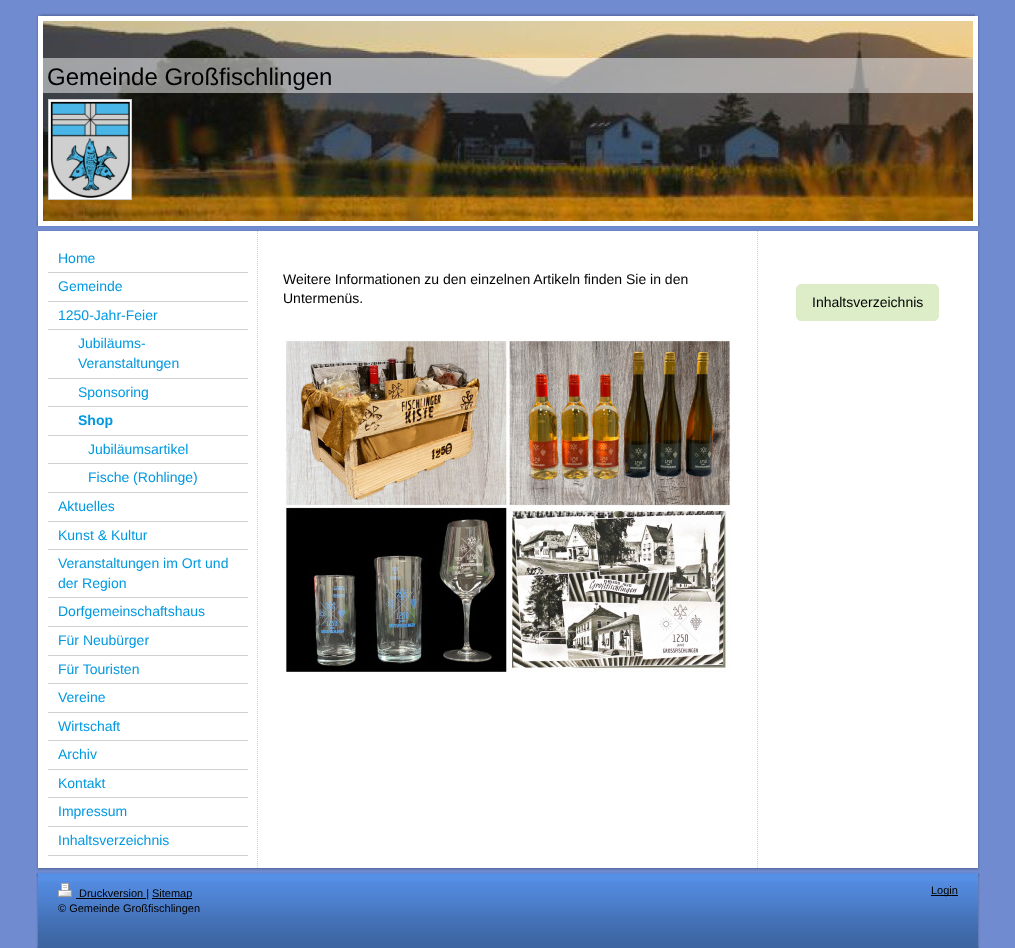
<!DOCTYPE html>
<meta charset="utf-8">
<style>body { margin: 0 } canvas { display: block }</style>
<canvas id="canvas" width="1015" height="948"></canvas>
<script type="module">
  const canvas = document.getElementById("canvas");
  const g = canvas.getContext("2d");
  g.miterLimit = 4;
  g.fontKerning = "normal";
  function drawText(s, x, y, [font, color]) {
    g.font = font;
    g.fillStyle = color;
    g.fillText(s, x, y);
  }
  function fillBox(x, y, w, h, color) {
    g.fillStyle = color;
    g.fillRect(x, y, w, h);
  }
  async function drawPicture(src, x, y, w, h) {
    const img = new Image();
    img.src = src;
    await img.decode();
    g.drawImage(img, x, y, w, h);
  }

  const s1 = ["24px Liberation Sans", "#000000"];
  const s2 = ["14px Liberation Sans", "#0099E1"];
  const s3 = ["bold 14px Liberation Sans", "#0099E1"];
  const s4 = ["14px Liberation Sans", "#000000"];
  const s5 = ["11px Liberation Sans", "#000000"];

  fillBox(0, 0, 1015, 948, "#708BCF");
  await drawPicture("pic1.png", 38, 13, 937, 8);
  await drawPicture("pic2.png", 36, 16, 7, 210);
  await drawPicture("pic3.png", 43, 21, 930, 200);
  fillBox(43, 58, 930, 35, "rgba(255, 255, 255, 0.5)");
  drawText("Gemeinde Großfischlingen", 47, 85, s1);
  g.strokeStyle = "#CCCCCC";
  g.strokeRect(48.5, 99.5, 83, 100);
  await drawPicture("pic4.png", 49, 100, 82, 99);
  await drawPicture("pic5.png", 973, 16, 7, 210);
  await drawPicture("pic6.png", 36, 221, 944, 6);
  await drawPicture("pic7.png", 36, 230, 944, 5);
  await drawPicture("pic8.png", 36, 866, 944, 5);
  await drawPicture("pic9.png", 36, 235, 944, 631);
  fillBox(48, 272, 200, 1, "#CFD0D1");
  drawText("Home", 58, 263, s2);
  fillBox(48, 301, 200, 1, "#CFD0D1");
  drawText("Gemeinde", 58, 291, s2);
  fillBox(48, 329, 200, 1, "#CFD0D1");
  drawText("1250-Jahr-Feier", 58, 320, s2);
  fillBox(48, 378, 200, 1, "#CFD0D1");
  drawText("Jubiläums-", 78, 348, s2);
  drawText("Veranstaltungen", 78, 368, s2);
  fillBox(48, 406, 200, 1, "#CFD0D1");
  drawText("Sponsoring", 78, 397, s2);
  fillBox(48, 435, 200, 1, "#CFD0D1");
  drawText("Shop", 78, 425, s3);
  fillBox(48, 463, 200, 1, "#CFD0D1");
  drawText("Jubiläumsartikel", 88, 454, s2);
  fillBox(48, 492, 200, 1, "#CFD0D1");
  drawText("Fische (Rohlinge)", 88, 482, s2);
  fillBox(48, 521, 200, 1, "#CFD0D1");
  drawText("Aktuelles", 58, 511, s2);
  fillBox(48, 549, 200, 1, "#CFD0D1");
  drawText("Kunst & Kultur", 58, 540, s2);
  fillBox(48, 597, 200, 1, "#CFD0D1");
  drawText("Veranstaltungen im Ort und", 58, 568, s2);
  drawText("der Region", 58, 588, s2);
  fillBox(48, 626, 200, 1, "#CFD0D1");
  drawText("Dorfgemeinschaftshaus", 58, 616, s2);
  fillBox(48, 655, 200, 1, "#CFD0D1");
  drawText("Für Neubürger", 58, 645, s2);
  fillBox(48, 683, 200, 1, "#CFD0D1");
  drawText("Für Touristen", 58, 674, s2);
  fillBox(48, 712, 200, 1, "#CFD0D1");
  drawText("Vereine", 58, 702, s2);
  fillBox(48, 740, 200, 1, "#CFD0D1");
  drawText("Wirtschaft", 58, 731, s2);
  fillBox(48, 769, 200, 1, "#CFD0D1");
  drawText("Archiv", 58, 759, s2);
  fillBox(48, 797, 200, 1, "#CFD0D1");
  drawText("Kontakt", 58, 788, s2);
  fillBox(48, 826, 200, 1, "#CFD0D1");
  drawText("Impressum", 58, 816, s2);
  fillBox(48, 855, 200, 1, "#CFD0D1");
  drawText("Inhaltsverzeichnis", 58, 845, s2);
  drawText("Weitere Informationen zu den einzelnen Artikeln finden Sie in den", 283, 284, s4);
  drawText("Untermenüs.", 283, 303, s4);
  await drawPicture("pic10.png", 283, 338, 448, 335);
  g.fillStyle = "#DCEDC8";
  g.beginPath();
  g.roundRect(796.5, 284.5, 142, 36, 4.5);
  g.fill();
  g.strokeStyle = "#DCEDC8";
  g.stroke();
  drawText("Inhaltsverzeichnis", 812, 307, s4);
  await drawPicture("pic11.png", 36, 872, 944, 5);
  await drawPicture("pic12.png", 36, 947, 944, 1);
  await drawPicture("pic13.png", 36, 873, 944, 75);
  fillBox(38, 873, 940, 75, "#568FE6");
  await drawPicture("pic14.png", 38, 881, 940, 67);
  await drawPicture("pic15.png", 58, 883, 14, 14);
  fillBox(76, 898, 70, 1, "#000000");
  drawText("Druckversion |", 79, 897, s5);
  fillBox(152, 898, 40, 1, "#000000");
  drawText("Sitemap", 152, 897, s5);
  g.save();
  g.beginPath();
  g.rect(58, 883, 900, 33);
  g.clip();
  drawText("© Gemeinde Großfischlingen", 58, 912, s5);
  g.restore();
  fillBox(931, 895, 27, 1, "#000000");
  drawText("Login", 931, 894, s5);
</script>
